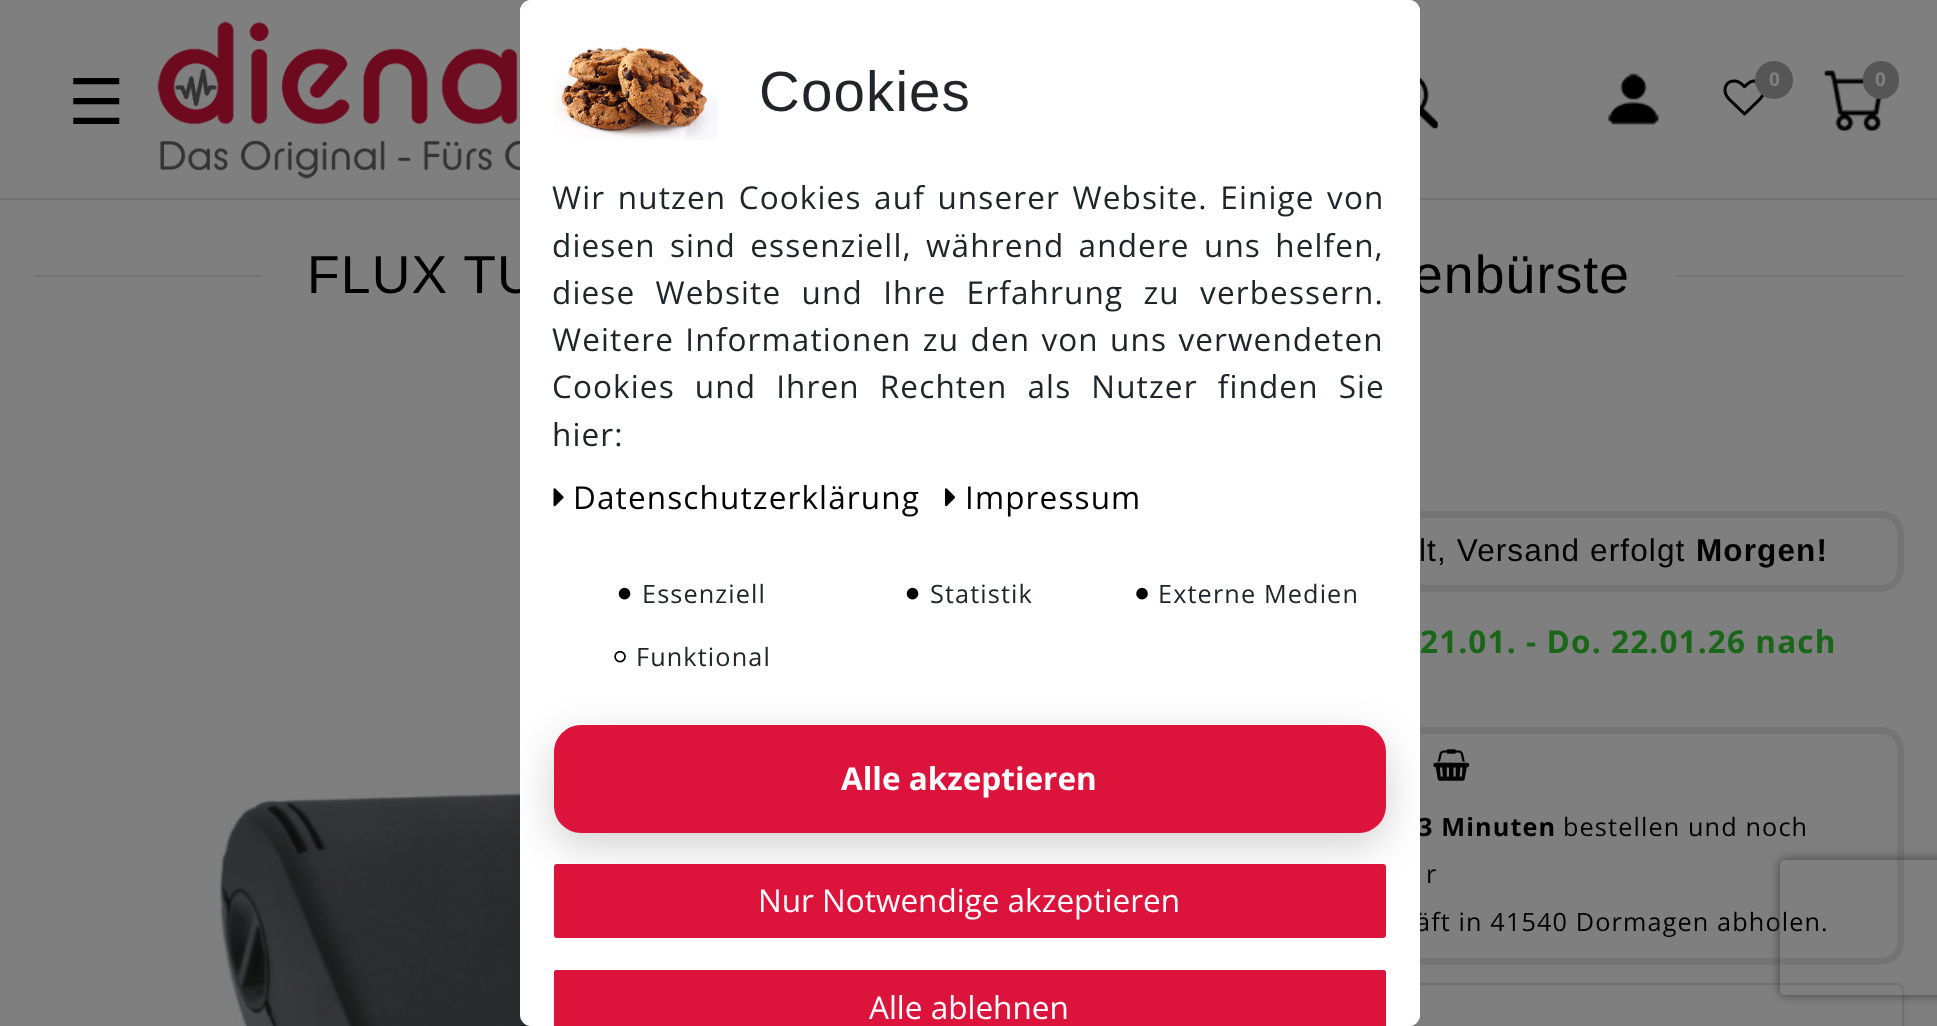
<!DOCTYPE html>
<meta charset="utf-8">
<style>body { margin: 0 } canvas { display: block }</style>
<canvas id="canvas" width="1937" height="1026"></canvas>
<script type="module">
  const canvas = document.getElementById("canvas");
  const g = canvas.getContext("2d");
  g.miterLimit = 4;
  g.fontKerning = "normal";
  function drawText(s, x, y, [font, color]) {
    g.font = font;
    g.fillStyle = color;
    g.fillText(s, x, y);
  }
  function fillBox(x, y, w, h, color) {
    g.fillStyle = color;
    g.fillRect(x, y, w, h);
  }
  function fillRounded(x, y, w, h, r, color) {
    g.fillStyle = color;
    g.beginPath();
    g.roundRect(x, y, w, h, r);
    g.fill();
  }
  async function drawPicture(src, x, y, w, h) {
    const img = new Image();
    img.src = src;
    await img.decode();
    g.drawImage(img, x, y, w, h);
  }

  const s1 = ["63px DejaVu Sans", "#000000"];
  const s2 = ["bold 19px Open Sans", "#FFFFFF"];
  const s3 = ["53.5px Liberation Sans", "#000000"];
  const s4 = ["31.5px Liberation Sans", "#000000"];
  const s5 = ["bold 31.5px Liberation Sans", "#000000"];
  const s6 = ["bold 31.5px Open Sans", "#33CC33"];
  const s7 = ["bold 25.25px Open Sans", "#000000"];
  const s8 = ["25.25px Open Sans", "#000000"];
  const s9 = ["56.5px Liberation Sans", "#212529"];
  const s10 = ["31.5px Open Sans", "#212529"];
  const s11 = ["31.5px Open Sans", "#000000"];
  const s12 = ["25.25px Open Sans", "#212529"];
  const s13 = ["bold 31.5px Open Sans", "#FFFFFF"];
  const s14 = ["31.5px Open Sans", "#FFFFFF"];

  fillBox(0, 0, 1937, 1026, "#FFFFFF");
  drawText("☰", 68, 124, s1);
  await drawPicture("pic7.png", 157, 21, 363, 158);
  await drawPicture("pic8.png", 1420, 77, 18, 52);
  await drawPicture("pic9.png", 1608, 73, 51, 52);
  await drawPicture("pic10.png", 1723, 79, 41, 37);
  g.fillStyle = "#ADADAD";
  g.beginPath();
  g.arc(1774, 80, 19, 0, Math.PI * 2);
  g.fill();
  g.letterSpacing = "1.12px";
  drawText("0", 1769, 86, s2);
  await drawPicture("pic11.png", 1824, 70, 58, 61);
  fillRounded(1863, 61, 36, 38, 18, "#ADADAD");
  drawText("0", 1875, 86, s2);
  fillBox(0, 198, 1937, 2, "#DEE2E6");
  fillBox(34, 275, 1870, 2, "#E9E9E9");
  fillBox(261, 275, 1415, 2, "#FFFFFF");
  drawText("FLUX TU", 307, 293, s3);
  drawText("enbürste", 1413, 293, s3);
  await drawPicture("pic12.png", 219, 532, 312, 494);
  g.beginPath();
  g.roundRect(1166.5, 514.5, 734, 74, 19.5);
  g.strokeStyle = "#E9E9E9";
  g.lineWidth = 7;
  g.stroke();
  drawText("lt, Versand erfolgt", 1419, 561, s4);
  drawText("Morgen!", 1696, 561, s5);
  drawText("21.01. - Do. 22.01.26 nach", 1420, 653, s6);
  g.beginPath();
  g.roundRect(1166.5, 730.5, 734, 231, 19.5);
  g.stroke();
  await drawPicture("pic13.png", 1433, 749, 37, 32);
  drawText("3 Minuten", 1418, 836, s7);
  drawText("bestellen und noch", 1563, 836, s8);
  drawText("r", 1426, 883, s8);
  drawText("äft in 41540 Dormagen abholen.", 1416, 931, s8);
  g.fillStyle = "rgba(0, 0, 0, 0.07)";
  g.filter = "blur(4px)";
  g.beginPath();
  g.roundRect(1163, 988, 741, 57, 7);
  g.fill();
  g.filter = "none";
  g.fillStyle = "#FFFFFF";
  g.beginPath();
  g.roundRect(1164, 984, 739, 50, 6);
  g.fill();
  g.strokeStyle = "#DEE2E6";
  g.lineWidth = 2;
  g.stroke();
  g.save();
  g.beginPath();
  g.moveTo(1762, 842);
  g.lineTo(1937, 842);
  g.lineTo(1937, 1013);
  g.lineTo(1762, 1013);
  g.closePath();
  g.moveTo(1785, 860);
  g.lineTo(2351, 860);
  g.bezierCurveTo(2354, 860, 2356, 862, 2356, 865);
  g.lineTo(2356, 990);
  g.bezierCurveTo(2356, 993, 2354, 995, 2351, 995);
  g.lineTo(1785, 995);
  g.bezierCurveTo(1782, 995, 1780, 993, 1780, 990);
  g.lineTo(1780, 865);
  g.bezierCurveTo(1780, 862, 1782, 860, 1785, 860);
  g.closePath();
  g.clip("evenodd");
  g.fillStyle = "#808080";
  g.filter = "blur(5.5px)";
  g.beginPath();
  g.roundRect(1780, 860, 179, 135, 5);
  g.fill();
  g.filter = "none";
  g.restore();
  g.beginPath();
  g.roundRect(-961.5, -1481.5, 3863, 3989, 1493.5);
  g.strokeStyle = "rgba(0, 0, 0, 0.5)";
  g.lineWidth = 2963;
  g.stroke();
  fillRounded(520, 0, 900, 1026, 11, "#FFFFFF");
  await drawPicture("pic1.png", 554, 47, 164, 94);
  drawText("Cookies", 759, 111, s9);
  g.wordSpacing = "3.25px";
  drawText("Wir nutzen Cookies auf unserer Website. Einige von", 552, 209, s10);
  g.wordSpacing = "5px";
  drawText("diesen sind essenziell, während andere uns helfen,", 552, 257, s10);
  g.wordSpacing = "11px";
  drawText("diese Website und Ihre Erfahrung zu verbessern.", 552, 304, s10);
  g.wordSpacing = "2px";
  drawText("Weitere Informationen zu den von uns verwendeten", 552, 351, s10);
  g.wordSpacing = "10.75px";
  drawText("Cookies und Ihren Rechten als Nutzer finden Sie", 552, 398, s10);
  g.wordSpacing = "0px";
  drawText("hier:", 552, 446, s10);
  await drawPicture("pic2.png", 553, 488, 11, 19);
  drawText("Datenschutzerklärung", 573, 509, s11);
  await drawPicture("pic3.png", 945, 488, 11, 19);
  drawText("Impressum", 965, 509, s11);
  await drawPicture("pic4.png", 618, 587, 13, 13);
  drawText("Essenziell", 642, 603, s12);
  await drawPicture("pic4.png", 906, 587, 13, 13);
  drawText("Statistik", 930, 603, s12);
  await drawPicture("pic5.png", 1136, 587, 12, 13);
  drawText("Externe Medien", 1158, 603, s12);
  await drawPicture("pic6.png", 614, 650, 12, 13);
  drawText("Funktional", 636, 666, s12);
  g.fillStyle = "rgba(0, 0, 0, 0.18)";
  g.filter = "blur(20px)";
  g.beginPath();
  g.roundRect(554, 738, 832, 108, 27);
  g.fill();
  g.filter = "none";
  g.fillStyle = "#DC143C";
  g.beginPath();
  g.roundRect(555, 726, 830, 106, 26);
  g.fill();
  g.strokeStyle = "#DC143C";
  g.lineWidth = 2;
  g.stroke();
  g.letterSpacing = "0px";
  drawText("Alle akzeptieren", 841, 790, s13);
  g.fillStyle = "#DC143C";
  g.beginPath();
  g.roundRect(555, 865, 830, 72, 2);
  g.fill();
  g.stroke();
  drawText("Nur Notwendige akzeptieren", 758, 912, s14);
  g.fillStyle = "#DC143C";
  g.beginPath();
  g.roundRect(554, 970, 832, 56, [3, 3, 0, 0]);
  g.fill();
  g.beginPath();
  g.roundRect(555, 971, 830, 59, 2);
  g.stroke();
  drawText("Alle ablehnen", 869, 1019, s14);
</script>
